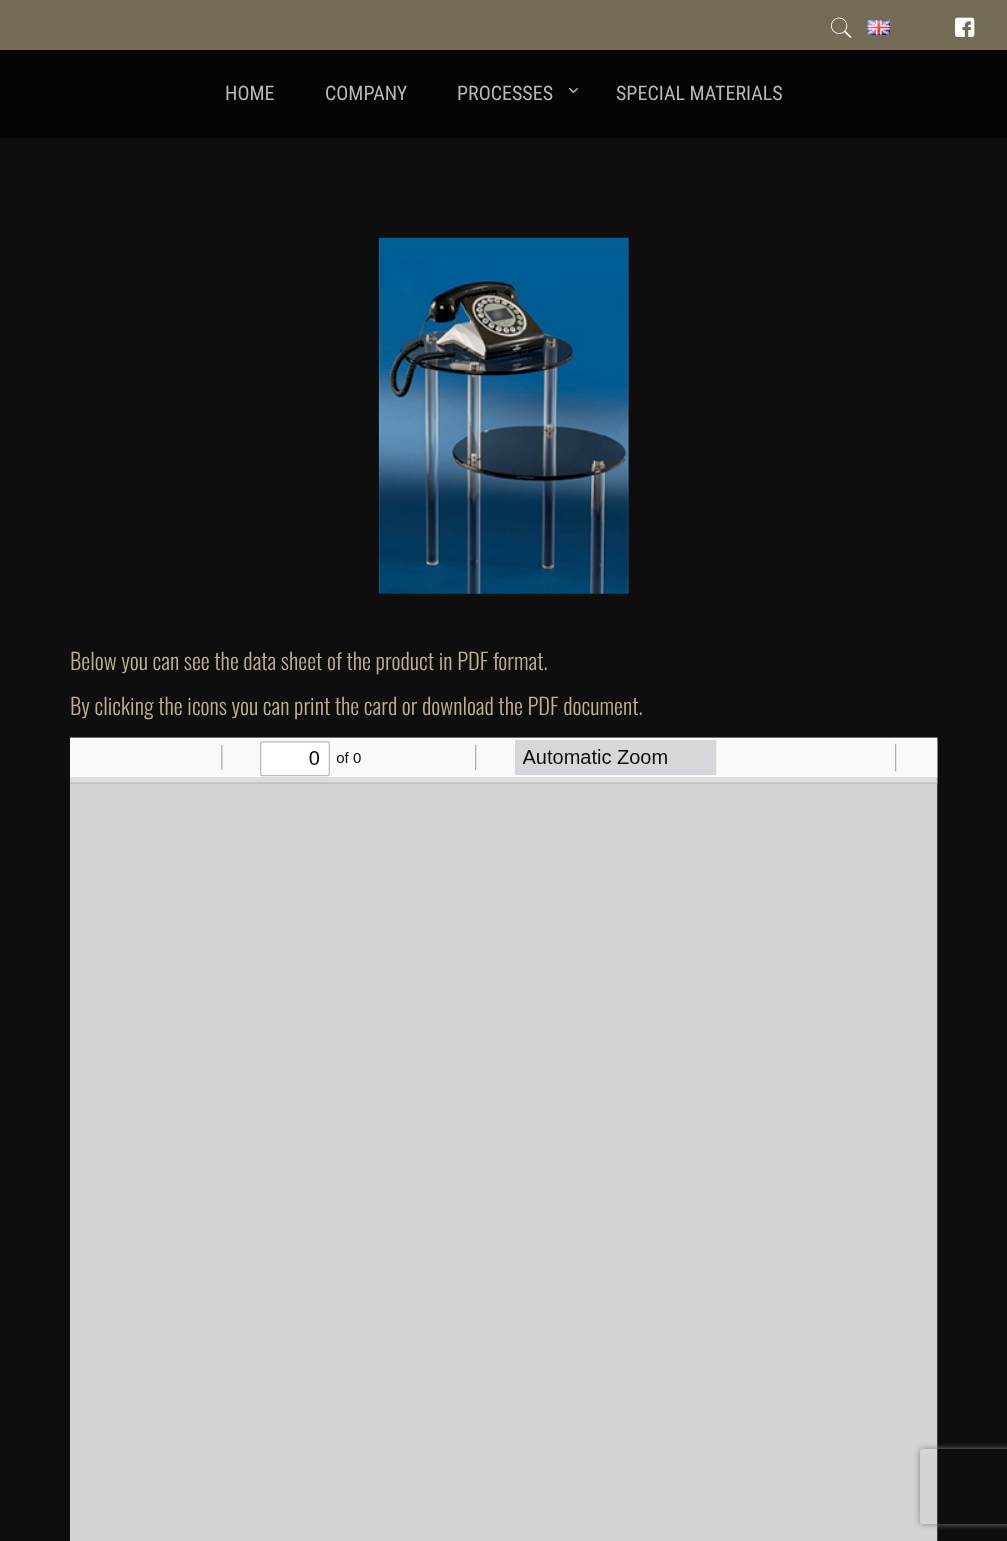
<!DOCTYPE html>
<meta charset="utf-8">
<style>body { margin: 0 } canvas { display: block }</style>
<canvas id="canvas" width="1007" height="1541"></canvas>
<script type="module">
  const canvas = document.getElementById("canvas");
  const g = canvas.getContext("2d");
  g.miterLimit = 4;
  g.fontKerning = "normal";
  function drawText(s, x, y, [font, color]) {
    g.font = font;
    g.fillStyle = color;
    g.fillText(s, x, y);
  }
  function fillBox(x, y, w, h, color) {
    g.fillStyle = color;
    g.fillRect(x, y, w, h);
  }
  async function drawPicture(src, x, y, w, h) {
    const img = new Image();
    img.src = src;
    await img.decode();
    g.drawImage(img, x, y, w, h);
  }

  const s1 = ["20px Roboto Condensed", "#B6B7B7"];
  const s2 = ["300 22.5px Oswald", "#BEAF90"];

  fillBox(0, 0, 1007, 1541, "#0E0E0E");
  fillBox(0, 50, 1007, 88, "#040404");
  fillBox(0, 0, 1007, 50, "#746B56");
  await drawPicture("pic1.png", 831, 17, 21, 22);
  await drawPicture("pic2.png", 867, 20, 23, 15);
  await drawPicture("pic3.png", 955, 17, 20, 20);
  drawText("HOME", 225, 100, s1);
  drawText("COMPANY", 325, 100, s1);
  drawText("PROCESSES", 457, 100, s1);
  await drawPicture("pic4.png", 568, 87, 10, 7);
  drawText("SPECIAL MATERIALS", 616, 100, s1);
  await drawPicture("pic5.png", 378, 237, 251, 357);
  drawText("Below you can see the data sheet of the product in PDF format.", 70, 670, s2);
  drawText("By clicking the icons you can print the card or download the PDF document.", 70, 715, s2);
  await drawPicture("pic6.png", 70, 737, 868, 804);
  g.save();
  g.beginPath();
  g.moveTo(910, 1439);
  g.lineTo(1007, 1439);
  g.lineTo(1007, 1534);
  g.lineTo(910, 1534);
  g.closePath();
  g.moveTo(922.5, 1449);
  g.lineTo(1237.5, 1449);
  g.bezierCurveTo(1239, 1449, 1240, 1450, 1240, 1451.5);
  g.lineTo(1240, 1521.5);
  g.bezierCurveTo(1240, 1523, 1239, 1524, 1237.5, 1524);
  g.lineTo(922.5, 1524);
  g.bezierCurveTo(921, 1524, 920, 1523, 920, 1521.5);
  g.lineTo(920, 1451.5);
  g.bezierCurveTo(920, 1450, 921, 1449, 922.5, 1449);
  g.closePath();
  g.clip("evenodd");
  g.fillStyle = "#808080";
  g.filter = "blur(3px)";
  g.beginPath();
  g.roundRect(920, 1449, 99, 75, 2.5);
  g.fill();
  g.filter = "none";
  g.restore();
</script>
